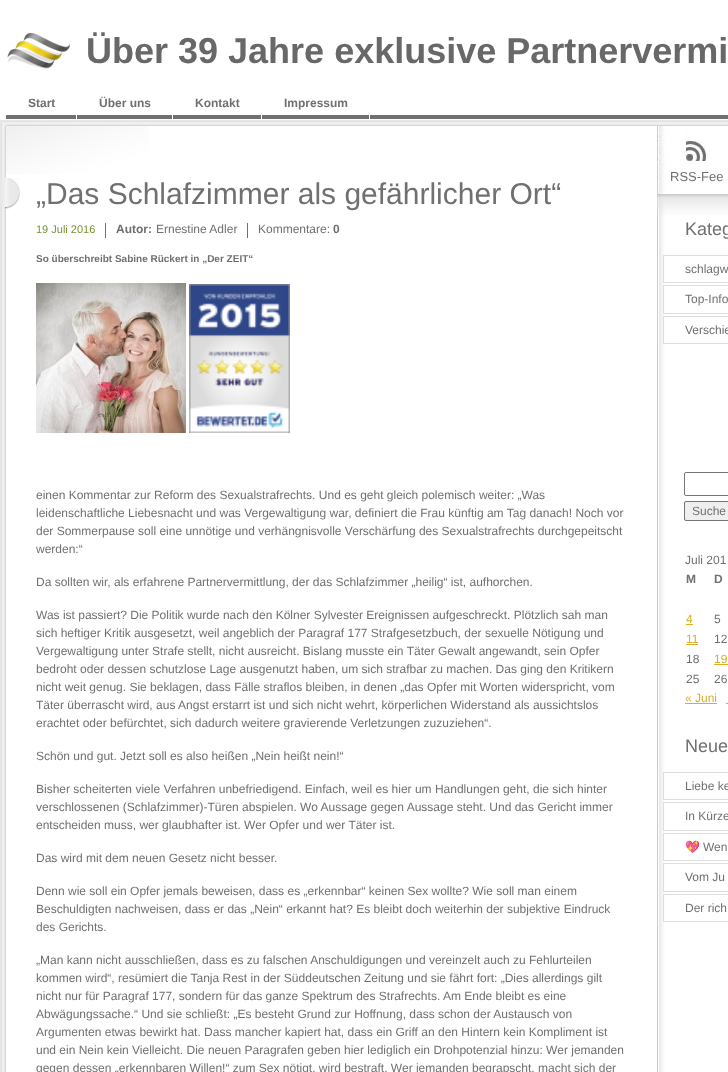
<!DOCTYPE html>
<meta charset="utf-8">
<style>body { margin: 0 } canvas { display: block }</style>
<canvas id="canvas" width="728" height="1072"></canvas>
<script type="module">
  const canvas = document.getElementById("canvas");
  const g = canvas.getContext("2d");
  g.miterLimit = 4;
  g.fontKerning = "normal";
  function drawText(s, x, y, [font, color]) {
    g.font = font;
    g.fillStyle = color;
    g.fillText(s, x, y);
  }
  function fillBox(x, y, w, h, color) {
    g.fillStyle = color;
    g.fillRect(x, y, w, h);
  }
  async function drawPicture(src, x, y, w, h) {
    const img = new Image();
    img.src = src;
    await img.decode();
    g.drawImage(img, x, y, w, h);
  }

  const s1 = ["bold 36px Liberation Sans", "#686868"];
  const s2 = ["bold 12px Liberation Sans", "#707070"];
  const s3 = ["30px Liberation Sans", "#707070"];
  const s4 = ["11px Liberation Sans", "#779434"];
  const s5 = ["12px Liberation Sans", "#707070"];
  const s6 = ["bold 10px Liberation Sans", "#707070"];
  const s7 = ["13px Liberation Sans", "#707070"];
  const s8 = ["18px Liberation Sans", "#707070"];
  const s9 = ["12px Liberation Sans", "#DAAE26"];
  const s10 = ["12px Noto Color Emoji", "#707070"];

  fillBox(0, 0, 728, 1072, "#FFFFFF");
  await drawPicture("pic1.png", 0, 0, 728, 120);
  await drawPicture("pic2.png", 7, 33, 63, 36);
  drawText("Über 39 Jahre exklusive Partnervermi", 86, 63, s1);
  fillBox(6, 115, 722, 4, "#707070");
  fillBox(76, 115, 1, 4, "#FFFFFF");
  drawText("Start", 28, 107, s2);
  fillBox(172, 115, 1, 4, "#FFFFFF");
  drawText("Über uns", 99, 107, s2);
  fillBox(261, 115, 1, 4, "#FFFFFF");
  drawText("Kontakt", 195, 107, s2);
  fillBox(369, 115, 1, 4, "#FFFFFF");
  drawText("Impressum", 284, 107, s2);
  await drawPicture("pic3.png", 0, 120, 728, 952);
  await drawPicture("pic4.png", 1, 120, 727, 6);
  await drawPicture("pic5.png", 6, 126, 143, 48);
  await drawPicture("pic6.png", 1, 178, 19, 31);
  drawText("„Das Schlafzimmer als gefährlicher Ort“", 36, 204, s3);
  drawText("19 Juli 2016", 36, 233, s4);
  fillBox(105, 223, 1, 15, "#707070");
  drawText("Autor:", 116, 233, s2);
  drawText("Ernestine Adler", 156, 233, s5);
  fillBox(247, 223, 1, 15, "#707070");
  drawText("Kommentare:", 258, 233, s5);
  drawText("0", 333, 233, s2);
  drawText("So überschreibt Sabine Rückert in „Der ZEIT“", 36, 262, s6);
  await drawPicture("pic7.png", 36, 283, 150, 150);
  await drawPicture("pic8.png", 189, 284, 101, 149);
  drawText("einen Kommentar zur Reform des Sexualstrafrechts. Und es geht gleich polemisch weiter: „Was", 36, 499, s5);
  drawText("leidenschaftliche Liebesnacht und was Vergewaltigung war, definiert die Frau künftig am Tag danach! Noch vor", 36, 517, s5);
  drawText("der Sommerpause soll eine unnötige und verhängnisvolle Verschärfung des Sexualstrafrechts durchgepeitscht", 36, 535, s5);
  drawText("werden:“", 36, 553, s5);
  drawText("Da sollten wir, als erfahrene Partnervermittlung, der das Schlafzimmer „heilig“ ist, aufhorchen.", 36, 586, s5);
  drawText("Was ist passiert? Die Politik wurde nach den Kölner Sylvester Ereignissen aufgeschreckt. Plötzlich sah man", 36, 619, s5);
  drawText("sich heftiger Kritik ausgesetzt, weil angeblich der Paragraf 177 Strafgesetzbuch, der sexuelle Nötigung und", 36, 637, s5);
  drawText("Vergewaltigung unter Strafe stellt, nicht ausreicht. Bislang musste ein Täter Gewalt angewandt, sein Opfer", 36, 655, s5);
  drawText("bedroht oder dessen schutzlose Lage ausgenutzt haben, um sich strafbar zu machen. Das ging den Kritikern", 36, 673, s5);
  drawText("nicht weit genug. Sie beklagen, dass Fälle straflos bleiben, in denen „das Opfer mit Worten widerspricht, vom", 36, 691, s5);
  drawText("Täter überrascht wird, aus Angst erstarrt ist und sich nicht wehrt, körperlichen Widerstand als aussichtslos", 36, 709, s5);
  drawText("erachtet oder befürchtet, sich dadurch weitere gravierende Verletzungen zuzuziehen“.", 36, 727, s5);
  drawText("Schön und gut. Jetzt soll es also heißen „Nein heißt nein!“", 36, 760, s5);
  drawText("Bisher scheiterten viele Verfahren unbefriedigend. Einfach, weil es hier um Handlungen geht, die sich hinter", 36, 793, s5);
  drawText("verschlossenen (Schlafzimmer)-Türen abspielen. Wo Aussage gegen Aussage steht. Und das Gericht immer", 36, 811, s5);
  drawText("entscheiden muss, wer glaubhafter ist. Wer Opfer und wer Täter ist.", 36, 829, s5);
  drawText("Das wird mit dem neuen Gesetz nicht besser.", 36, 862, s5);
  drawText("Denn wie soll ein Opfer jemals beweisen, dass es „erkennbar“ keinen Sex wollte? Wie soll man einem", 36, 895, s5);
  drawText("Beschuldigten nachweisen, dass er das „Nein“ erkannt hat? Es bleibt doch weiterhin der subjektive Eindruck", 36, 913, s5);
  drawText("des Gerichts.", 36, 931, s5);
  drawText("„Man kann nicht ausschließen, dass es zu falschen Anschuldigungen und vereinzelt auch zu Fehlurteilen", 36, 964, s5);
  drawText("kommen wird“, resümiert die Tanja Rest in der Süddeutschen Zeitung und sie fährt fort: „Dies allerdings gilt", 36, 982, s5);
  drawText("nicht nur für Paragraf 177, sondern für das ganze Spektrum des Strafrechts. Am Ende bleibt es eine", 36, 1000, s5);
  drawText("Abwägungssache.“ Und sie schließt: „Es besteht Grund zur Hoffnung, dass schon der Austausch von", 36, 1018, s5);
  drawText("Argumenten etwas bewirkt hat. Dass mancher kapiert hat, dass ein Griff an den Hintern kein Kompliment ist", 36, 1036, s5);
  drawText("und ein Nein kein Vielleicht. Die neuen Paragrafen geben hier lediglich ein Drohpotenzial hinzu: Wer jemanden", 36, 1054, s5);
  drawText("gegen dessen „erkennbaren Willen!“ zum Sex nötigt, wird bestraft. Wer jemanden begrapscht, macht sich der", 36, 1072, s5);
  await drawPicture("pic9.png", 657, 194, 71, 21);
  await drawPicture("pic10.png", 657, 126, 52, 68);
  drawText("RSS-Fee", 670, 181, s7);
  drawText("Kateg", 685, 235, s8);
  g.strokeStyle = "#DEDEDE";
  g.strokeRect(663.5, 255.5, 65, 27);
  drawText("schlagw", 685, 273, s5);
  g.strokeRect(663.5, 285.5, 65, 28);
  drawText("Top-Info", 685, 303, s5);
  g.strokeRect(663.5, 316.5, 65, 27);
  drawText("Verschie", 685, 334, s5);
  g.beginPath();
  g.roundRect(684.5, 472.5, 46, 23, 1.5);
  g.strokeStyle = "#767676";
  g.stroke();
  g.fillStyle = "#EFEFEF";
  g.beginPath();
  g.roundRect(684.5, 501.5, 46, 19, 1.5);
  g.fill();
  g.stroke();
  drawText("Suche", 692, 515, s5);
  drawText("Juli 201", 685, 564, s5);
  drawText("M", 686, 583, s2);
  drawText("D", 714, 583, s2);
  drawText("4", 686, 623, s9);
  fillBox(686, 624, 7, 1, "#DAAE26");
  drawText("5", 714, 623, s5);
  drawText("11", 686, 643, s9);
  fillBox(686, 644, 12, 1, "#DAAE26");
  drawText("12", 714, 643, s5);
  drawText("18", 686, 663, s5);
  drawText("19", 714, 663, s9);
  fillBox(714, 664, 14, 1, "#DAAE26");
  drawText("25", 686, 683, s5);
  drawText("26", 714, 683, s5);
  drawText("« Juni", 685, 702, s9);
  fillBox(685, 703, 32, 1, "#DAAE26");
  fillBox(726, 703, 2, 1, "#DAAE26");
  drawText("Neue", 685, 752, s8);
  g.strokeStyle = "#DEDEDE";
  g.strokeRect(663.5, 772.5, 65, 27);
  drawText("Liebe ke", 685, 790, s5);
  g.strokeRect(663.5, 802.5, 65, 28);
  drawText("In Kürze", 685, 820, s5);
  g.strokeRect(663.5, 833.5, 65, 27);
  drawText("💖", 685, 851, s10);
  drawText("Wen", 703, 851, s5);
  g.strokeRect(663.5, 863.5, 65, 28);
  drawText("Vom Ju", 685, 881, s5);
  g.strokeRect(663.5, 894.5, 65, 27);
  drawText("Der rich", 685, 912, s5);
</script>
